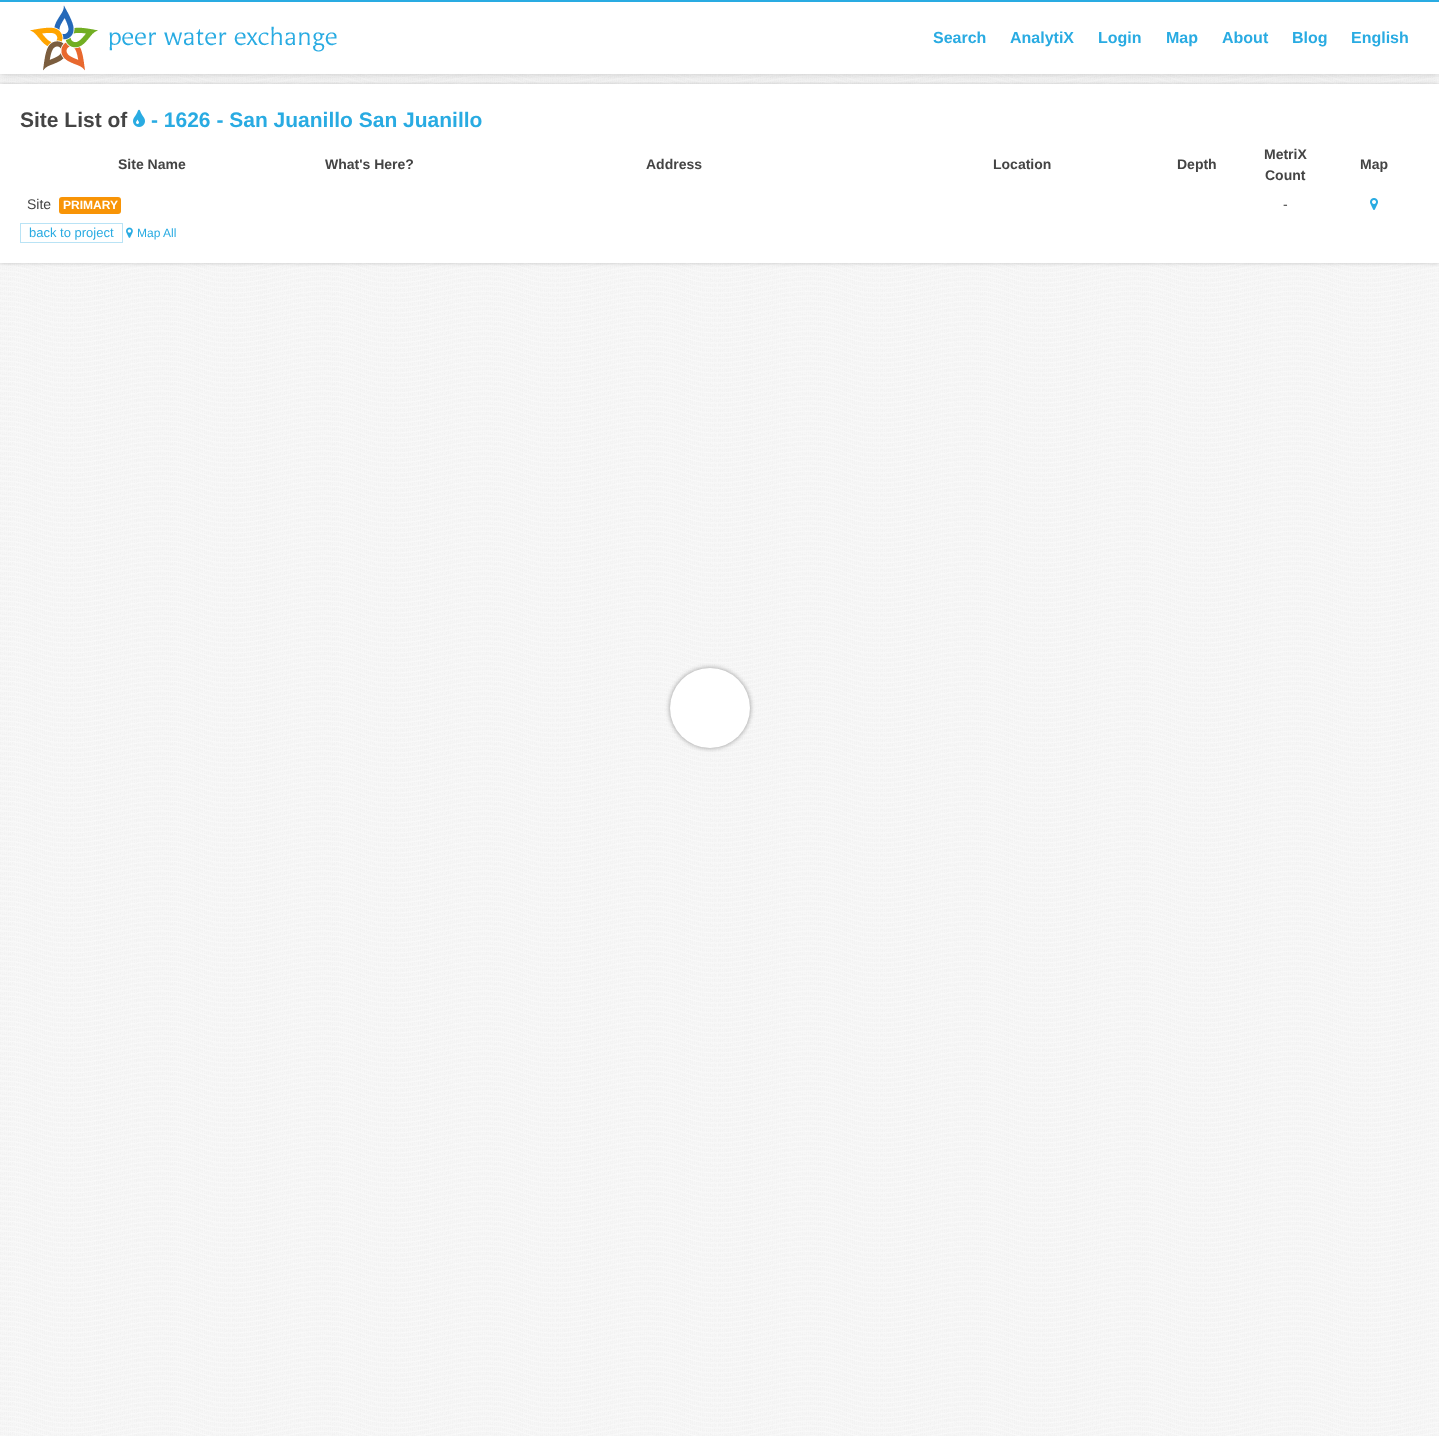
<!DOCTYPE html>
<meta charset="utf-8">
<style>body { margin: 0 } canvas { display: block }</style>
<canvas id="canvas" width="1439" height="1436"></canvas>
<script type="module">
  const canvas = document.getElementById("canvas");
  const g = canvas.getContext("2d");
  g.miterLimit = 4;
  g.fontKerning = "normal";
  function drawText(s, x, y, [font, color]) {
    g.font = font;
    g.fillStyle = color;
    g.fillText(s, x, y);
  }
  function fillBox(x, y, w, h, color) {
    g.fillStyle = color;
    g.fillRect(x, y, w, h);
  }
  function fillRounded(x, y, w, h, r, color) {
    g.fillStyle = color;
    g.beginPath();
    g.roundRect(x, y, w, h, r);
    g.fill();
  }
  async function drawPicture(src, x, y, w, h) {
    const img = new Image();
    img.src = src;
    await img.decode();
    g.drawImage(img, x, y, w, h);
  }

  const s1 = ["bold 16px Liberation Sans", "#29ABE2"];
  const s2 = ["bold 21px Liberation Sans", "#444444"];
  const s3 = ["bold 21px Liberation Sans", "#29ABE2"];
  const s4 = ["bold 14px Liberation Sans", "#444444"];
  const s5 = ["14px Liberation Sans", "#444444"];
  const s6 = ["bold 12px Liberation Sans", "#FFFFFF"];
  const s7 = ["13px Liberation Sans", "#29ABE2"];
  const s8 = ["12px Liberation Sans", "#29ABE2"];

  fillBox(0, 0, 1439, 1436, "#FFFFFF");
  await drawPicture("pic1.png", 0, 74, 1439, 1362);
  g.fillStyle = "rgba(0, 0, 0, 0.2)";
  g.filter = "blur(2px)";
  g.beginPath();
  g.rect(0, 84, 1439, 179);
  g.fill();
  g.filter = "none";
  fillBox(0, 84, 1439, 179, "#FFFFFF");
  g.fillStyle = "rgba(0, 0, 0, 0.2)";
  g.filter = "blur(5px)";
  g.beginPath();
  g.rect(0, 0, 1439, 74);
  g.fill();
  g.filter = "none";
  fillBox(0, 2, 1439, 72, "#FFFFFF");
  fillBox(0, 0, 1439, 2, "#29ABE2");
  await drawPicture("pic2.png", 30, 5, 307, 66);
  drawText("Search", 933, 43, s1);
  drawText("AnalytiX", 1010, 43, s1);
  drawText("Login", 1098, 43, s1);
  drawText("Map", 1166, 43, s1);
  drawText("About", 1222, 43, s1);
  drawText("Blog", 1292, 43, s1);
  drawText("English", 1351, 43, s1);
  g.fillStyle = "rgba(0, 0, 0, 0.4)";
  g.filter = "blur(2.5px)";
  g.beginPath();
  g.roundRect(670, 668, 80, 80, 40);
  g.fill();
  g.filter = "none";
  g.fillStyle = "#FFFFFF";
  g.beginPath();
  g.arc(710, 708, 40, 0, Math.PI * 2);
  g.fill();
  drawText("Site List of", 20, 127, s2);
  await drawPicture("pic3.png", 133, 109, 12, 18);
  drawText("- 1626 - San Juanillo San Juanillo", 151, 127, s3);
  drawText("Site Name", 118, 169, s4);
  drawText("What's Here?", 325, 169, s4);
  drawText("Address", 646, 169, s4);
  drawText("Location", 993, 169, s4);
  drawText("Depth", 1177, 169, s4);
  drawText("MetriX", 1264, 159, s4);
  drawText("Count", 1265, 180, s4);
  drawText("Map", 1360, 169, s4);
  drawText("Site", 27, 209, s5);
  fillRounded(59, 197, 62, 17, 3, "#F89406");
  drawText("PRIMARY", 63, 209, s6);
  drawText("-", 1283, 209, s5);
  await drawPicture("pic4.png", 1370, 198, 8, 12);
  g.strokeStyle = "#B9E3F5";
  g.strokeRect(20.5, 223.5, 102, 19);
  drawText("back to project", 29, 237, s7);
  await drawPicture("pic5.png", 126, 227, 7, 11);
  drawText("Map All", 137, 237, s8);
</script>
